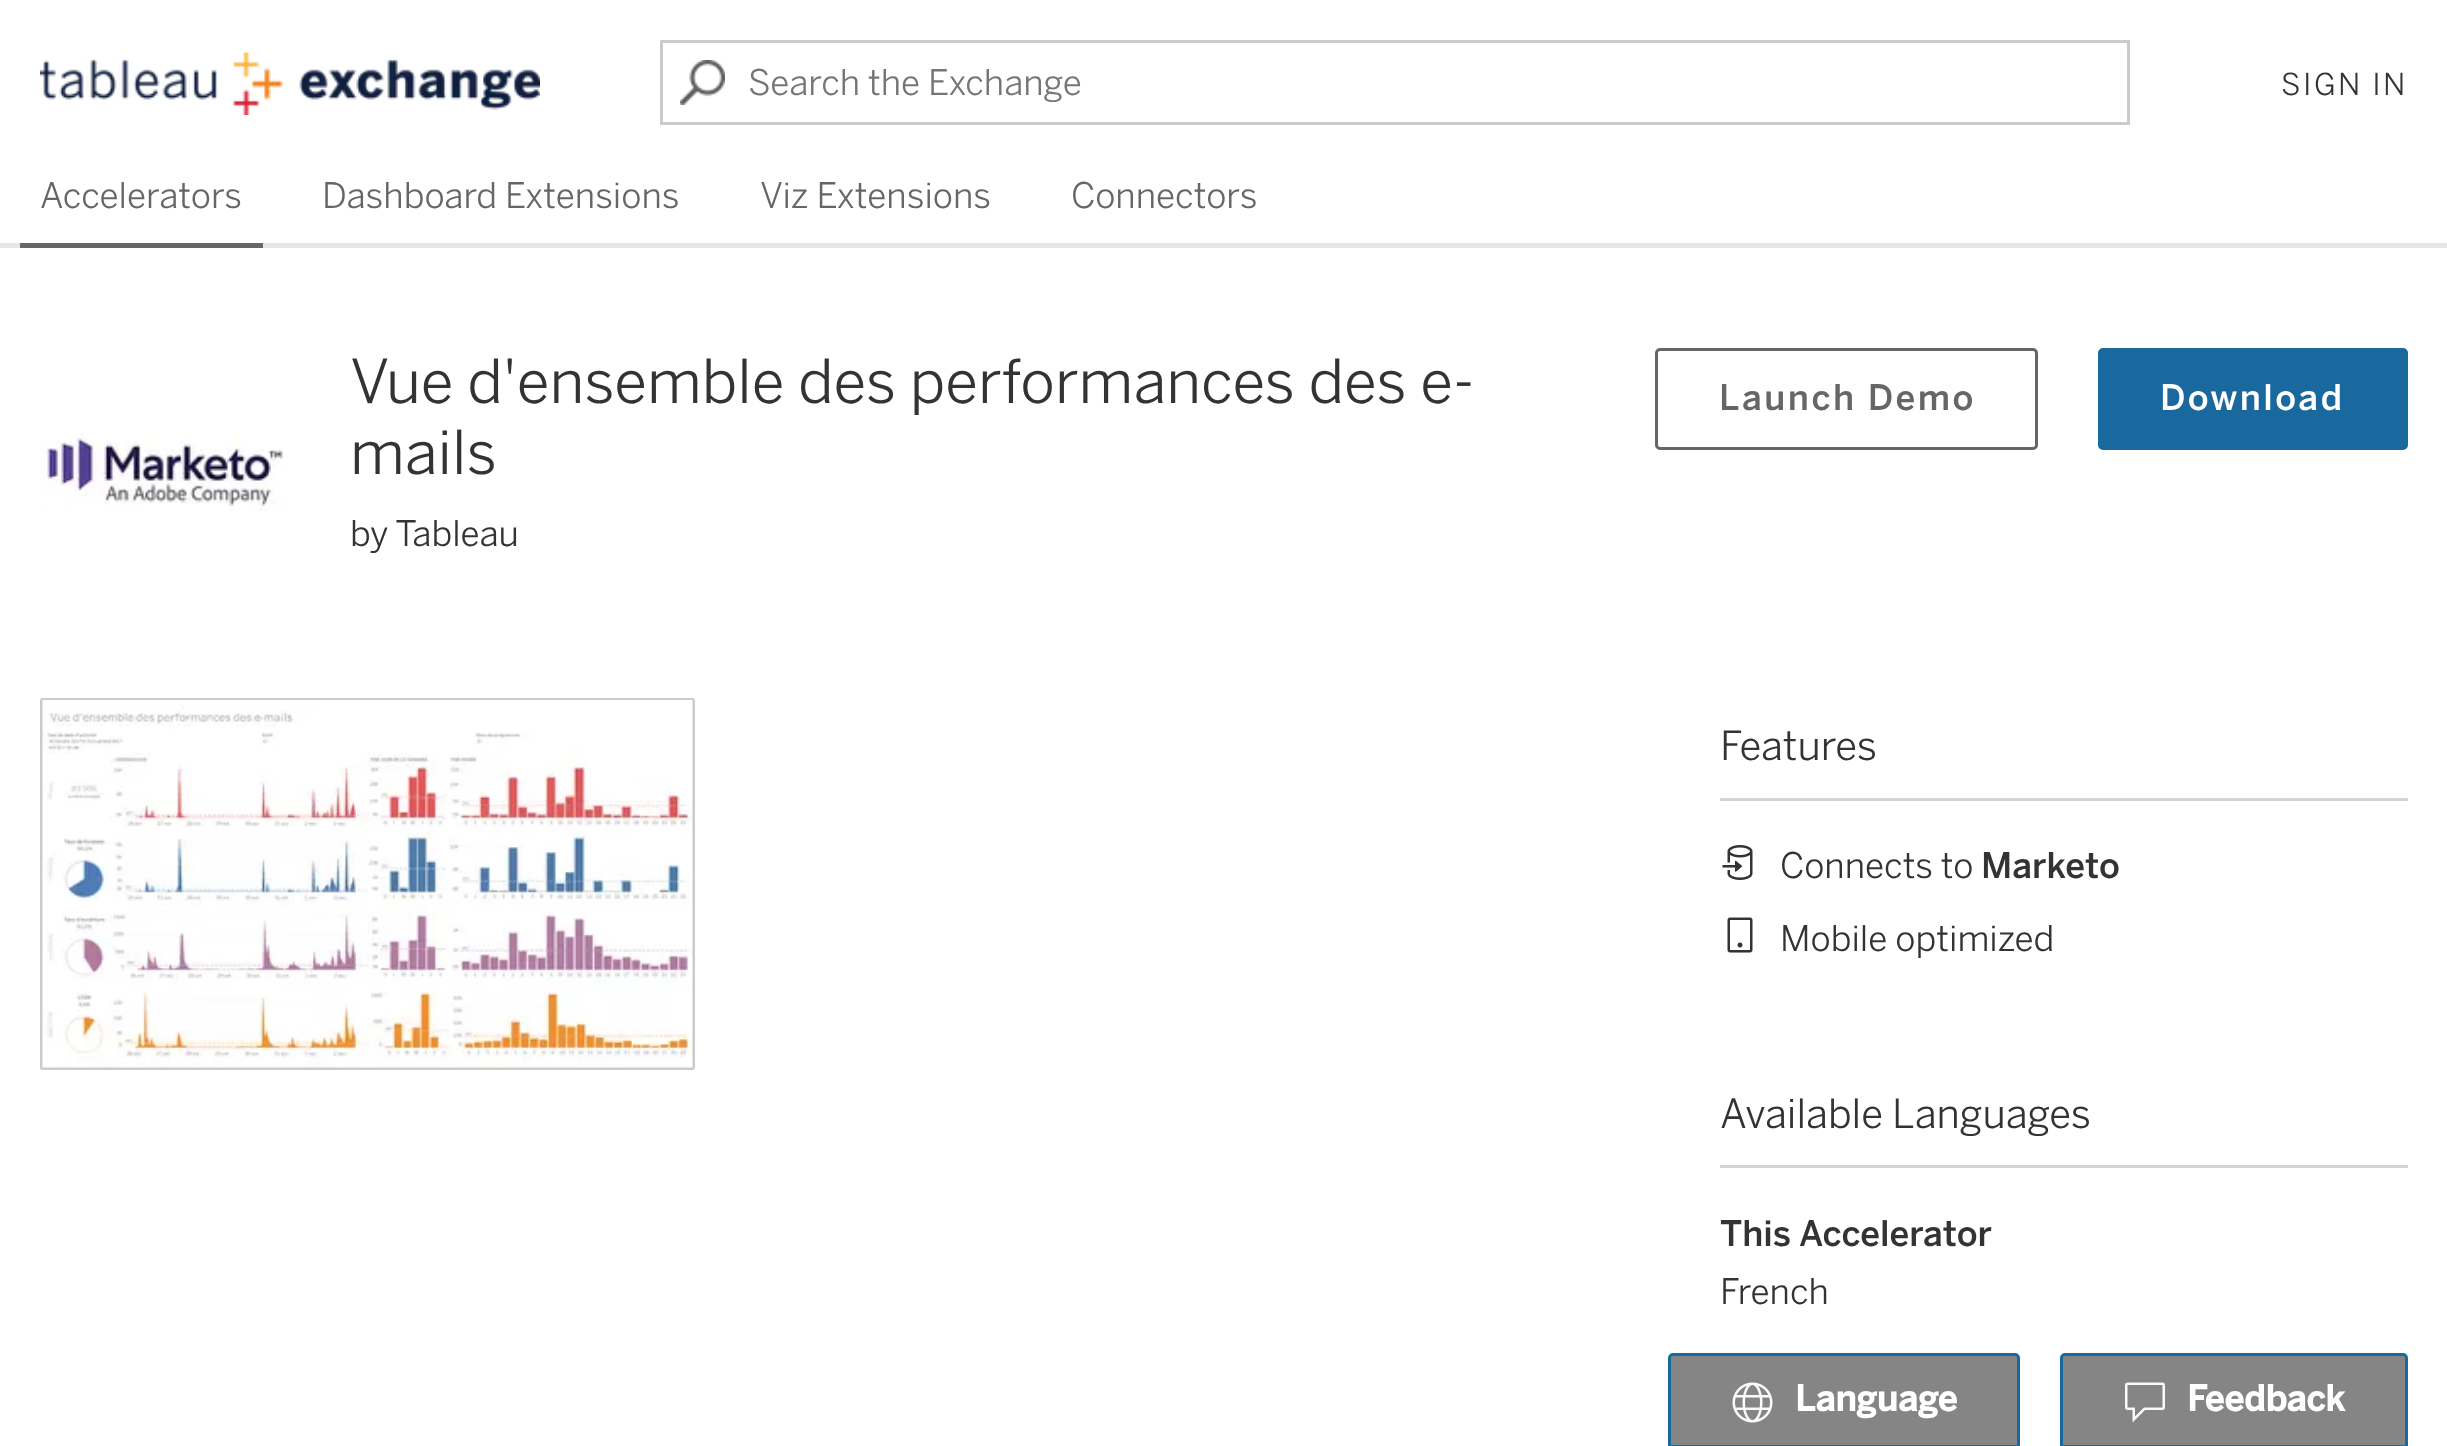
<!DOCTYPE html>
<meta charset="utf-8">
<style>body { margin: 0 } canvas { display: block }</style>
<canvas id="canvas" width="2447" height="1446"></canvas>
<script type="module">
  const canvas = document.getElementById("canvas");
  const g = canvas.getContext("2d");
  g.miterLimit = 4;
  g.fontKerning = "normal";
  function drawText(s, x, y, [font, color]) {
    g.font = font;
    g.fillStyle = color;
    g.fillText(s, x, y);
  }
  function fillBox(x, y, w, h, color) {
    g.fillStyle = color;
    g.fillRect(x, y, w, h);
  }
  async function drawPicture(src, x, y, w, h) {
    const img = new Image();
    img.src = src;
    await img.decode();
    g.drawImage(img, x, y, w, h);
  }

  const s1 = ["35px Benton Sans", "#757575"];
  const s2 = ["30px Benton Sans", "#333333"];
  const s3 = ["35px Benton Sans", "#666666"];
  const s4 = ["60px Benton Sans", "#333333"];
  const s5 = ["35px Benton Sans", "#333333"];
  const s6 = ["500 35px Benton Sans", "#666666"];
  const s7 = ["500 35px Benton Sans", "#FFFFFF"];
  const s8 = ["40px Benton Sans", "#333333"];
  const s9 = ["500 35px Benton Sans", "#333333"];
  const s10 = ["bold 35px Benton Sans", "#FFFFFF"];

  fillBox(0, 0, 2447, 1446, "#FFFFFF");
  fillBox(0, 243, 2447, 5, "#E6E6E6");
  await drawPicture("pic1.png", 40, 52, 500, 63);
  g.strokeStyle = "#CBCBCB";
  g.lineWidth = 3;
  g.strokeRect(661.5, 41.5, 1467, 82);
  await drawPicture("pic2.png", 680, 60, 45, 45);
  drawText("Search the Exchange", 748, 95, s1);
  g.letterSpacing = "2.5px";
  drawText("SIGN IN", 2281, 95, s2);
  fillBox(20, 243, 243, 5, "#666666");
  g.letterSpacing = "0px";
  drawText("Accelerators", 40, 208, s3);
  drawText("Dashboard Extensions", 322, 208, s3);
  drawText("Viz Extensions", 760, 208, s3);
  drawText("Connectors", 1071, 208, s3);
  await drawPicture("pic3.png", 40, 433, 243, 78);
  drawText("Vue d'ensemble des performances des e-", 350, 403, s4);
  drawText("mails", 350, 474, s4);
  drawText("by Tableau", 350, 546, s5);
  g.beginPath();
  g.roundRect(1656.5, 349.5, 380, 99, 3.5);
  g.strokeStyle = "#666666";
  g.stroke();
  g.letterSpacing = "2.5px";
  drawText("Launch Demo", 1719, 410, s6);
  g.fillStyle = "#1A699E";
  g.beginPath();
  g.roundRect(2099.5, 349.5, 307, 99, 3.5);
  g.fill();
  g.strokeStyle = "#1A699E";
  g.stroke();
  drawText("Download", 2160, 410, s7);
  g.beginPath();
  g.roundRect(41.5, 699.5, 652, 369, 1);
  g.strokeStyle = "#CBCBCB";
  g.stroke();
  await drawPicture("pic4.png", 42, 700, 651, 368);
  fillBox(1720, 798, 688, 3, "#D4D4D4");
  g.letterSpacing = "0px";
  drawText("Features", 1720, 760, s8);
  await drawPicture("pic5.png", 1722, 845, 31, 35);
  drawText("Connects to", 1780, 878, s5);
  drawText("Marketo", 1981, 878, s9);
  await drawPicture("pic6.png", 1727, 917, 26, 36);
  drawText("Mobile optimized", 1780, 951, s5);
  fillBox(1720, 1165, 688, 3, "#D4D4D4");
  drawText("Available Languages", 1720, 1128, s8);
  drawText("This Accelerator", 1720, 1246, s9);
  drawText("French", 1720, 1304, s5);
  g.fillStyle = "#858585";
  g.beginPath();
  g.moveTo(1673, 1354.5);
  g.lineTo(2015, 1354.5);
  g.bezierCurveTo(2017, 1354.5, 2018.5, 1356, 2018.5, 1358);
  g.lineTo(2018.5, 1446.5);
  g.lineTo(1669.5, 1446.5);
  g.lineTo(1669.5, 1358);
  g.bezierCurveTo(1669.5, 1356, 1671, 1354.5, 1673, 1354.5);
  g.closePath();
  g.fill();
  g.strokeStyle = "#1A699E";
  g.stroke();
  await drawPicture("pic7.png", 1732, 1382, 41, 41);
  drawText("Language", 1795, 1411, s10);
  g.fillStyle = "#858585";
  g.beginPath();
  g.moveTo(2065, 1354.5);
  g.lineTo(2403, 1354.5);
  g.bezierCurveTo(2405, 1354.5, 2406.5, 1356, 2406.5, 1358);
  g.lineTo(2406.5, 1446.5);
  g.lineTo(2061.5, 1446.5);
  g.lineTo(2061.5, 1358);
  g.bezierCurveTo(2061.5, 1356, 2063, 1354.5, 2065, 1354.5);
  g.closePath();
  g.fill();
  g.stroke();
  await drawPicture("pic8.png", 2125, 1382, 40, 41);
  drawText("Feedback", 2187, 1411, s10);
</script>
